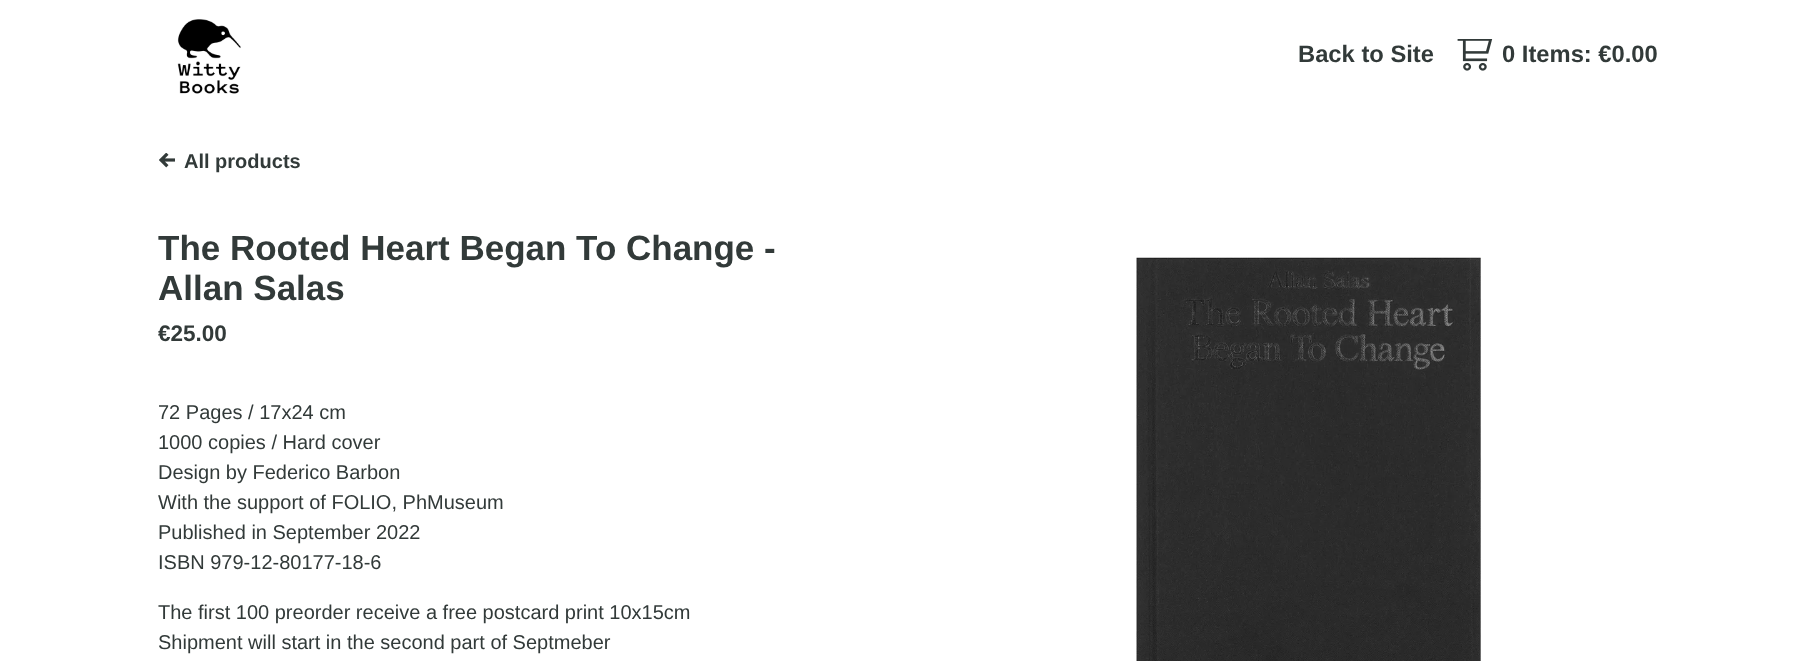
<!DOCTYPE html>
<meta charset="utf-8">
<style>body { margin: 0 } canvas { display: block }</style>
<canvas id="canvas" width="1816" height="661"></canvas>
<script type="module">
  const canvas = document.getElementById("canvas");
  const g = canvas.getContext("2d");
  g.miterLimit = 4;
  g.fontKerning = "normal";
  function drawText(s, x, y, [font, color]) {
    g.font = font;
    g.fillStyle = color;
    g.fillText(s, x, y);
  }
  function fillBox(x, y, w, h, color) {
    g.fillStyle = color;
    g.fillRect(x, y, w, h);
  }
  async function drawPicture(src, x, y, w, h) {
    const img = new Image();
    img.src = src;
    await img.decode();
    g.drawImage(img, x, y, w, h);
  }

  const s1 = ["bold 23.75px Liberation Sans", "#323A39"];
  const s2 = ["bold 20px Liberation Sans", "#323A39"];
  const s3 = ["bold 35px Liberation Sans", "#323A39"];
  const s4 = ["bold 22.5px Liberation Sans", "#323A39"];
  const s5 = ["20px Liberation Sans", "#323A39"];

  fillBox(0, 0, 1816, 661, "#FFFFFF");
  await drawPicture("pic1.png", 177, 19, 64, 75);
  drawText("Back to Site", 1298, 62, s1);
  await drawPicture("pic2.png", 1457, 39, 36, 32);
  drawText("0 Items: €0.00", 1502, 62, s1);
  await drawPicture("pic3.png", 159, 153, 16, 15);
  drawText("All products", 184, 168, s2);
  drawText("The Rooted Heart Began To Change -", 158, 260, s3);
  drawText("Allan Salas", 158, 300, s3);
  drawText("€25.00", 158, 341, s4);
  drawText("72 Pages / 17x24 cm", 158, 419, s5);
  drawText("1000 copies / Hard cover", 158, 449, s5);
  drawText("Design by Federico Barbon", 158, 479, s5);
  drawText("With the support of FOLIO, PhMuseum", 158, 509, s5);
  drawText("Published in September 2022", 158, 539, s5);
  drawText("ISBN 979-12-80177-18-6", 158, 569, s5);
  drawText("The first 100 preorder receive a free postcard print 10x15cm", 158, 619, s5);
  drawText("Shipment will start in the second part of Septmeber", 158, 649, s5);
  await drawPicture("pic4.png", 1136, 257, 345, 404);
</script>
